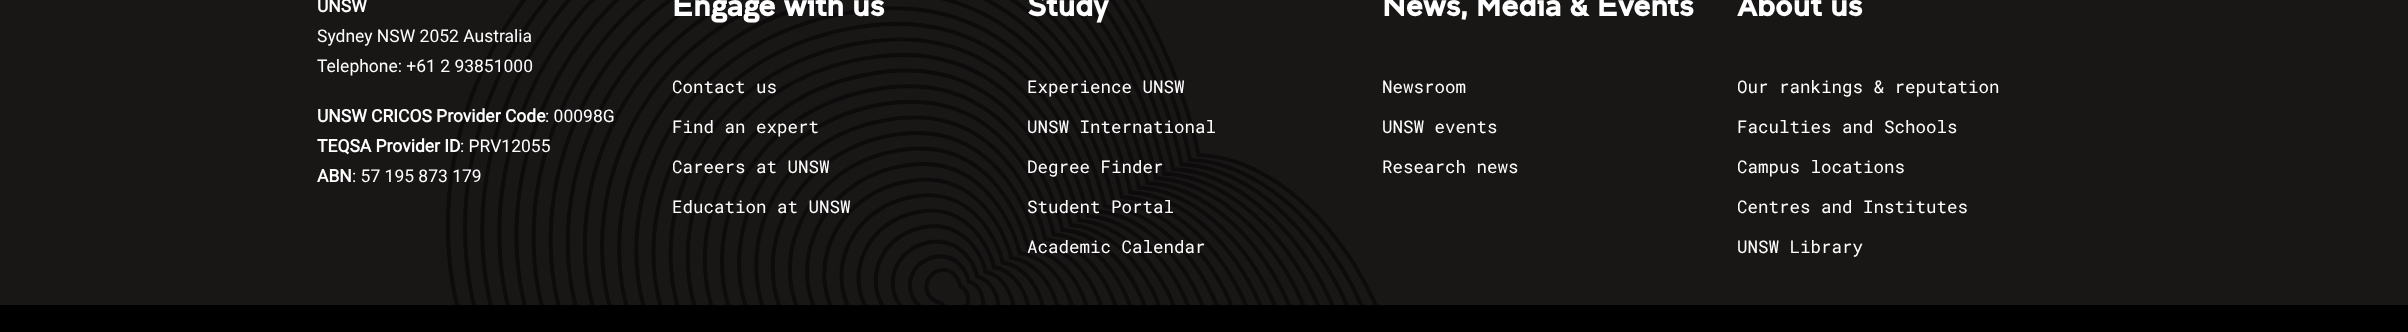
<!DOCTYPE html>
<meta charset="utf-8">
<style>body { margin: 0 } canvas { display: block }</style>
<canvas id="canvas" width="2408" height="332"></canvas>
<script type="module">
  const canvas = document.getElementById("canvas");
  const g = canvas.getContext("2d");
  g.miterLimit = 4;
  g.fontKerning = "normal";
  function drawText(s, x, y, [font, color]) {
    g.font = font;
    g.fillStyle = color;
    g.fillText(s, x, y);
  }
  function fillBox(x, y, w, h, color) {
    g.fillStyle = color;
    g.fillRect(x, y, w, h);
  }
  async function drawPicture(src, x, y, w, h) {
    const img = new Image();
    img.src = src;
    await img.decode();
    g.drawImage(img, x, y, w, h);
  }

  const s1 = ["bold 17.5px Roboto", "#FFFFFF"];
  const s2 = ["17.5px Roboto", "#FFFFFF"];
  const s3 = ["bold 30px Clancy", "#FFFFFF"];
  const s4 = ["17.5px Roboto Mono", "#FFFFFF"];

  fillBox(0, 0, 2408, 332, "#181716");
  await drawPicture("pic1.png", 446, 0, 932, 305);
  drawText("UNSW", 317, 12, s1);
  drawText("Sydney NSW 2052 Australia", 317, 42, s2);
  drawText("Telephone: +61 2 93851000", 317, 72, s2);
  drawText("UNSW CRICOS Provider Code", 317, 122, s1);
  drawText(": 00098G", 545, 122, s2);
  drawText("TEQSA Provider ID", 317, 152, s1);
  drawText(": PRV12055", 460, 152, s2);
  drawText("ABN", 317, 182, s1);
  drawText(": 57 195 873 179", 352, 182, s2);
  drawText("Engage with us", 672, 16, s3);
  g.save();
  g.beginPath();
  g.rect(673, 68, 335, 160);
  g.clip();
  drawText("Contact us", 672, 93, s4);
  g.restore();
  drawText("Find an expert", 672, 133, s4);
  g.save();
  g.beginPath();
  g.rect(673, 68, 335, 160);
  g.clip();
  drawText("Careers at UNSW", 672, 173, s4);
  g.restore();
  drawText("Education at UNSW", 672, 213, s4);
  drawText("Study", 1027, 16, s3);
  drawText("Experience UNSW", 1027, 93, s4);
  drawText("UNSW International", 1027, 133, s4);
  drawText("Degree Finder", 1027, 173, s4);
  drawText("Student Portal", 1027, 213, s4);
  drawText("Academic Calendar", 1027, 253, s4);
  drawText("News, Media & Events", 1382, 16, s3);
  drawText("Newsroom", 1382, 93, s4);
  drawText("UNSW events", 1382, 133, s4);
  drawText("Research news", 1382, 173, s4);
  drawText("About us", 1737, 16, s3);
  g.save();
  g.beginPath();
  g.rect(1738, 68, 335, 200);
  g.clip();
  drawText("Our rankings & reputation", 1737, 93, s4);
  g.restore();
  drawText("Faculties and Schools", 1737, 133, s4);
  g.save();
  g.beginPath();
  g.rect(1738, 68, 335, 200);
  g.clip();
  drawText("Campus locations", 1737, 173, s4);
  drawText("Centres and Institutes", 1737, 213, s4);
  g.restore();
  drawText("UNSW Library", 1737, 253, s4);
  fillBox(0, 305, 2408, 27, "#000000");
</script>
